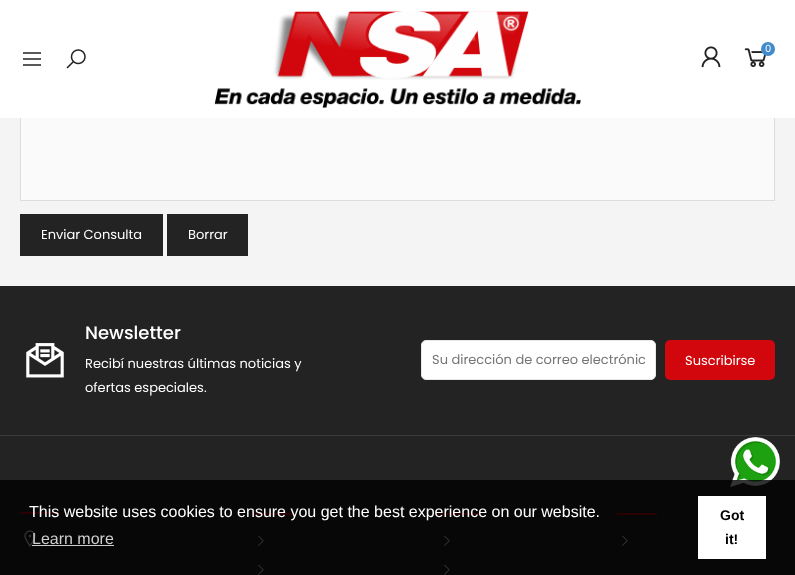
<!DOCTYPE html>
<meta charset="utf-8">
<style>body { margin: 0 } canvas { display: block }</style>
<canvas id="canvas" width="795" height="575"></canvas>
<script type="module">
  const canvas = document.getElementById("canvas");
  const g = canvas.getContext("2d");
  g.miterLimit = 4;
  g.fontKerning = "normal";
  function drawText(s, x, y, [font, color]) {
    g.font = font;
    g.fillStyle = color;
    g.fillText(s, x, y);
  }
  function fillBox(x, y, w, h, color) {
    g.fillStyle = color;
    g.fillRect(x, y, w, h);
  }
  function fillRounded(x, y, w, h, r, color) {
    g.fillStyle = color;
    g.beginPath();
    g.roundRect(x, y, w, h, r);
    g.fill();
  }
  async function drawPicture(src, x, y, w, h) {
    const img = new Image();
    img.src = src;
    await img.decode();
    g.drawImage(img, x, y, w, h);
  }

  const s1 = ["10px Poppins", "#FFFFFF"];
  const s2 = ["13px Poppins", "#FFFFFF"];
  const s3 = ["500 18px Poppins", "#FFFFFF"];
  const s4 = ["13px Poppins", "#757575"];
  const s5 = ["16px Liberation Sans", "#FFFFFF"];
  const s6 = ["16px Liberation Sans", "#CFCFCF"];
  const s7 = ["bold 14px Liberation Sans", "#000000"];

  fillBox(0, 0, 795, 575, "#F4F4F4");
  fillBox(21, 118, 753, 82, "#FAFAFA");
  g.strokeStyle = "#DDDDDD";
  g.strokeRect(20.5, 103.5, 754, 97);
  fillBox(0, 0, 795, 118, "#FFFFFF");
  await drawPicture("pic1.png", 214, 11, 367, 97);
  await drawPicture("pic2.png", 701, 46, 20, 22);
  await drawPicture("pic3.png", 744, 48, 22, 19);
  g.fillStyle = "#428BCA";
  g.beginPath();
  g.arc(768, 49, 7, 0, Math.PI * 2);
  g.fill();
  drawText("0", 765, 52, s1);
  await drawPicture("pic4.png", 23, 52, 18, 14);
  await drawPicture("pic5.png", 66, 49, 20, 20);
  fillBox(20, 214, 143, 42, "#232323");
  drawText("Enviar Consulta", 41, 239, s2);
  fillBox(167, 214, 81, 42, "#232323");
  drawText("Borrar", 188, 239, s2);
  fillBox(0, 286, 795, 149, "#232323");
  fillBox(0, 435, 795, 1, "#393939");
  await drawPicture("pic6.png", 26, 343, 38, 35);
  drawText("Newsletter", 85, 339, s3);
  drawText("Recibí nuestras últimas noticias y", 85, 368, s2);
  drawText("ofertas especiales.", 85, 392, s2);
  g.beginPath();
  g.roundRect(421.5, 340.5, 234, 39, 4.5);
  g.fill();
  g.strokeStyle = "#E8E8E8";
  g.stroke();
  g.save();
  g.beginPath();
  g.rect(432, 350, 213, 20);
  g.clip();
  drawText("Su dirección de correo electrónic", 432, 364, s4);
  g.restore();
  fillRounded(665, 340, 110, 40, 5, "#D1070D");
  drawText("Suscribirse", 685, 365, s2);
  fillBox(0, 436, 795, 139, "#232323");
  fillBox(20, 512, 40, 2, "#D1070D");
  await drawPicture("pic7.png", 24, 530, 12, 17);
  fillBox(253, 513, 40, 2, "#D1070D");
  await drawPicture("pic8.png", 258, 535, 6, 11);
  await drawPicture("pic8.png", 258, 564, 6, 11);
  fillBox(439, 513, 40, 2, "#D1070D");
  await drawPicture("pic8.png", 444, 535, 6, 11);
  await drawPicture("pic8.png", 444, 564, 6, 11);
  fillBox(617, 513, 40, 2, "#D1070D");
  await drawPicture("pic8.png", 622, 535, 6, 11);
  await drawPicture("pic9.png", 730, 437, 50, 50);
  fillBox(0, 480, 795, 95, "rgba(0, 0, 0, 0.8)");
  drawText("This website uses cookies to ensure you get the best experience on our website.", 29, 517, s5);
  drawText("Learn more", 32, 544, s6);
  fillBox(32, 545, 82, 1, "rgba(255, 255, 255, 0.8)");
  fillBox(698, 496, 68, 63, "#FFFFFF");
  drawText("Got", 720, 520, s7);
  drawText("it!", 725, 544, s7);
</script>
